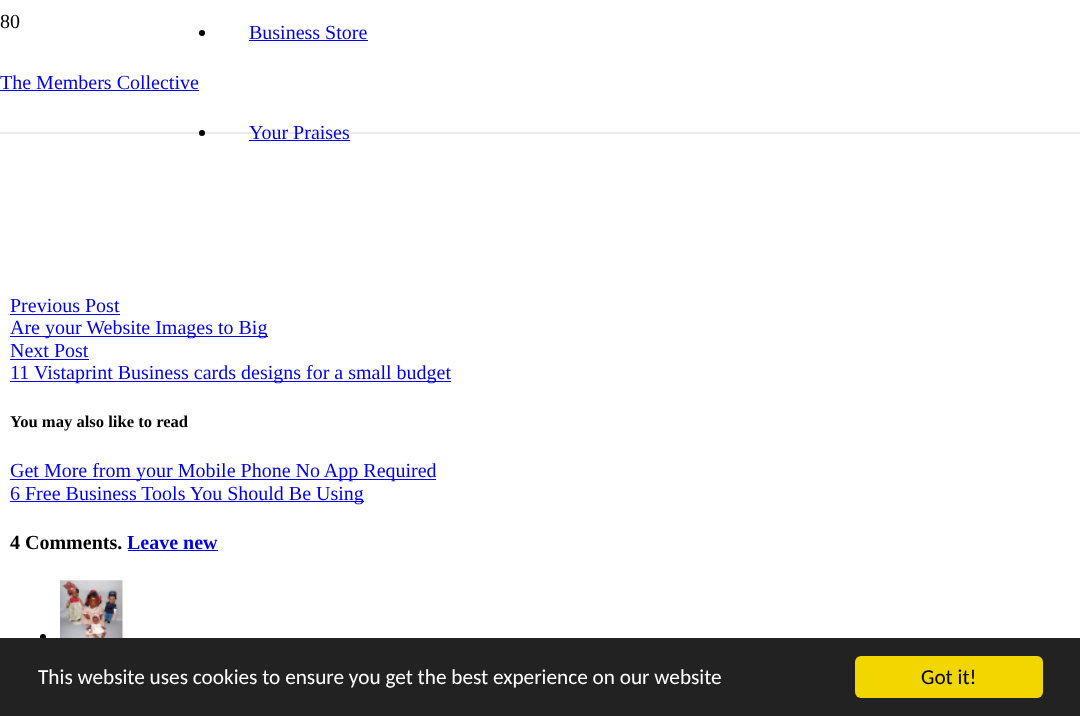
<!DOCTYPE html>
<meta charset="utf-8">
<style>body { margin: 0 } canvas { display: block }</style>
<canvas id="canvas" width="1080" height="716"></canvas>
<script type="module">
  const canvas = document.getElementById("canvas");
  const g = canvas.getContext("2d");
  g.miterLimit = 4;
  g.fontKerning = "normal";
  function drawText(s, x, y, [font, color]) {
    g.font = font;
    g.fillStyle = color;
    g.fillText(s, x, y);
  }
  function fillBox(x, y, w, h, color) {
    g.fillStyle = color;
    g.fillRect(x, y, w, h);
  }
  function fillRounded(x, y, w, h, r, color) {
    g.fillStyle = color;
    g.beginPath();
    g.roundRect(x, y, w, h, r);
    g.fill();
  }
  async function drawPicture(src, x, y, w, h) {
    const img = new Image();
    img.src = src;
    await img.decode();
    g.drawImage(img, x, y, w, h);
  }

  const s1 = ["20px Liberation Serif", "#000000"];
  const s2 = ["20px Liberation Serif", "#0000EE"];
  const s3 = ["bold 16.6px Liberation Serif", "#000000"];
  const s4 = ["bold 20px Liberation Serif", "#000000"];
  const s5 = ["bold 20px Liberation Serif", "#0000EE"];
  const s6 = ["21.25px Carlito", "#FFFFFF"];
  const s7 = ["21.25px Carlito", "#000000"];

  fillBox(0, 0, 1080, 716, "#FFFFFF");
  drawText("80", 0, 28, s1);
  fillBox(0, 132, 1080, 2, "#EBEBEB");
  drawText("The Members Collective", 0, 89, s2);
  fillBox(0, 90, 199, 1, "#0000EE");
  g.fillStyle = "#000000";
  g.beginPath();
  g.arc(202, 33, 3, 0, Math.PI * 2);
  g.fill();
  drawText("Business Store", 249, 39, s2);
  fillBox(249, 40, 119, 1, "#0000EE");
  g.fillStyle = "#000000";
  g.beginPath();
  g.arc(202, 133, 3, 0, Math.PI * 2);
  g.fill();
  drawText("Your Praises", 249, 139, s2);
  fillBox(249, 140, 101, 1, "#0000EE");
  drawText("Previous Post", 10, 312, s2);
  fillBox(10, 314, 110, 1, "#0000EE");
  fillBox(10, 336, 258, 1, "#0000EE");
  drawText("Are your Website Images to Big", 10, 334, s2);
  drawText("Next Post", 10, 357, s2);
  fillBox(10, 359, 79, 1, "#0000EE");
  fillBox(10, 381, 441, 1, "#0000EE");
  drawText("11 Vistaprint Business cards designs for a small budget", 10, 379, s2);
  drawText("You may also like to read", 10, 427, s3);
  fillBox(10, 479, 426, 1, "#0000EE");
  drawText("Get More from your Mobile Phone No App Required", 10, 477, s2);
  fillBox(10, 501, 354, 1, "#0000EE");
  drawText("6 Free Business Tools You Should Be Using", 10, 500, s2);
  drawText("4 Comments.", 10, 549, s4);
  drawText("Leave new", 127, 549, s5);
  fillBox(128, 550, 90, 1, "#0000EE");
  g.fillStyle = "#000000";
  g.beginPath();
  g.arc(43, 637, 3, 0, Math.PI * 2);
  g.fill();
  await drawPicture("pic1.png", 60, 580, 63, 58);
  fillBox(0, 638, 1080, 78, "#222222");
  drawText("This website uses cookies to ensure you get the best experience on our website", 38, 684, s6);
  fillRounded(855, 656, 188, 42, 6, "#F1D600");
  drawText("Got it!", 921, 684, s7);
</script>
